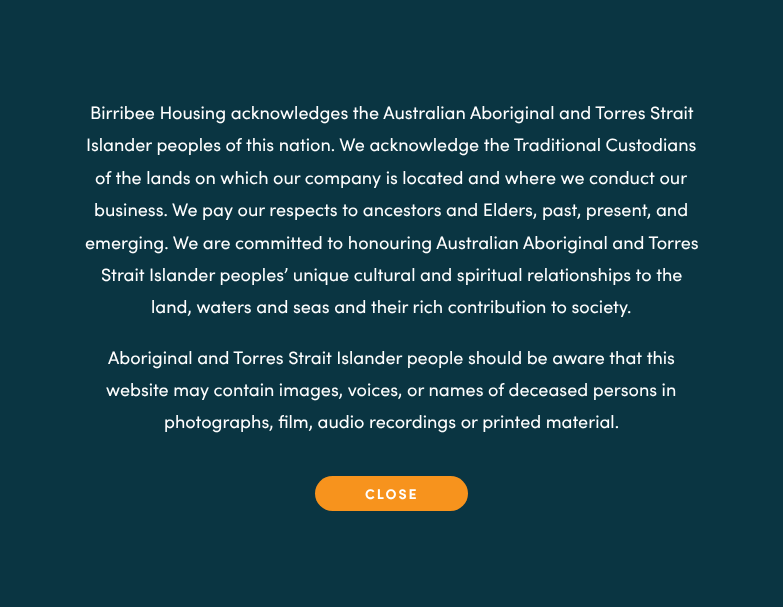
<!DOCTYPE html>
<meta charset="utf-8">
<style>body { margin: 0 } canvas { display: block }</style>
<canvas id="canvas" width="783" height="607"></canvas>
<script type="module">
  const canvas = document.getElementById("canvas");
  const g = canvas.getContext("2d");
  g.miterLimit = 4;
  g.fontKerning = "normal";
  function drawText(s, x, y, [font, color]) {
    g.font = font;
    g.fillStyle = color;
    g.fillText(s, x, y);
  }
  function fillBox(x, y, w, h, color) {
    g.fillStyle = color;
    g.fillRect(x, y, w, h);
  }
  function fillRounded(x, y, w, h, r, color) {
    g.fillStyle = color;
    g.beginPath();
    g.roundRect(x, y, w, h, r);
    g.fill();
  }

  const s1 = ["18px Sofia", "#FFFFFF"];
  const s2 = ["bold 14px Sofia", "#FFFFFF"];

  fillBox(0, 0, 783, 607, "#0A3542");
  drawText("Birribee Housing acknowledges the Australian Aboriginal and Torres Strait", 90, 119, s1);
  drawText("Islander peoples of this nation. We acknowledge the Traditional Custodians", 86, 151, s1);
  drawText("of the lands on which our company is located and where we conduct our", 95, 184, s1);
  drawText("business. We pay our respects to ancestors and Elders, past, present, and", 94, 216, s1);
  drawText("emerging. We are committed to honouring Australian Aboriginal and Torres", 85, 249, s1);
  drawText("Strait Islander peoples’ unique cultural and spiritual relationships to the", 101, 281, s1);
  drawText("land, waters and seas and their rich contribution to society.", 151, 313, s1);
  drawText("Aboriginal and Torres Strait Islander people should be aware that this", 108, 364, s1);
  drawText("website may contain images, voices, or names of deceased persons in", 106, 396, s1);
  drawText("photographs, film, audio recordings or printed material.", 164, 428, s1);
  fillRounded(315, 476, 153, 35, 17.5, "#F7931D");
  g.letterSpacing = "2px";
  drawText("CLOSE", 365, 499, s2);
</script>
